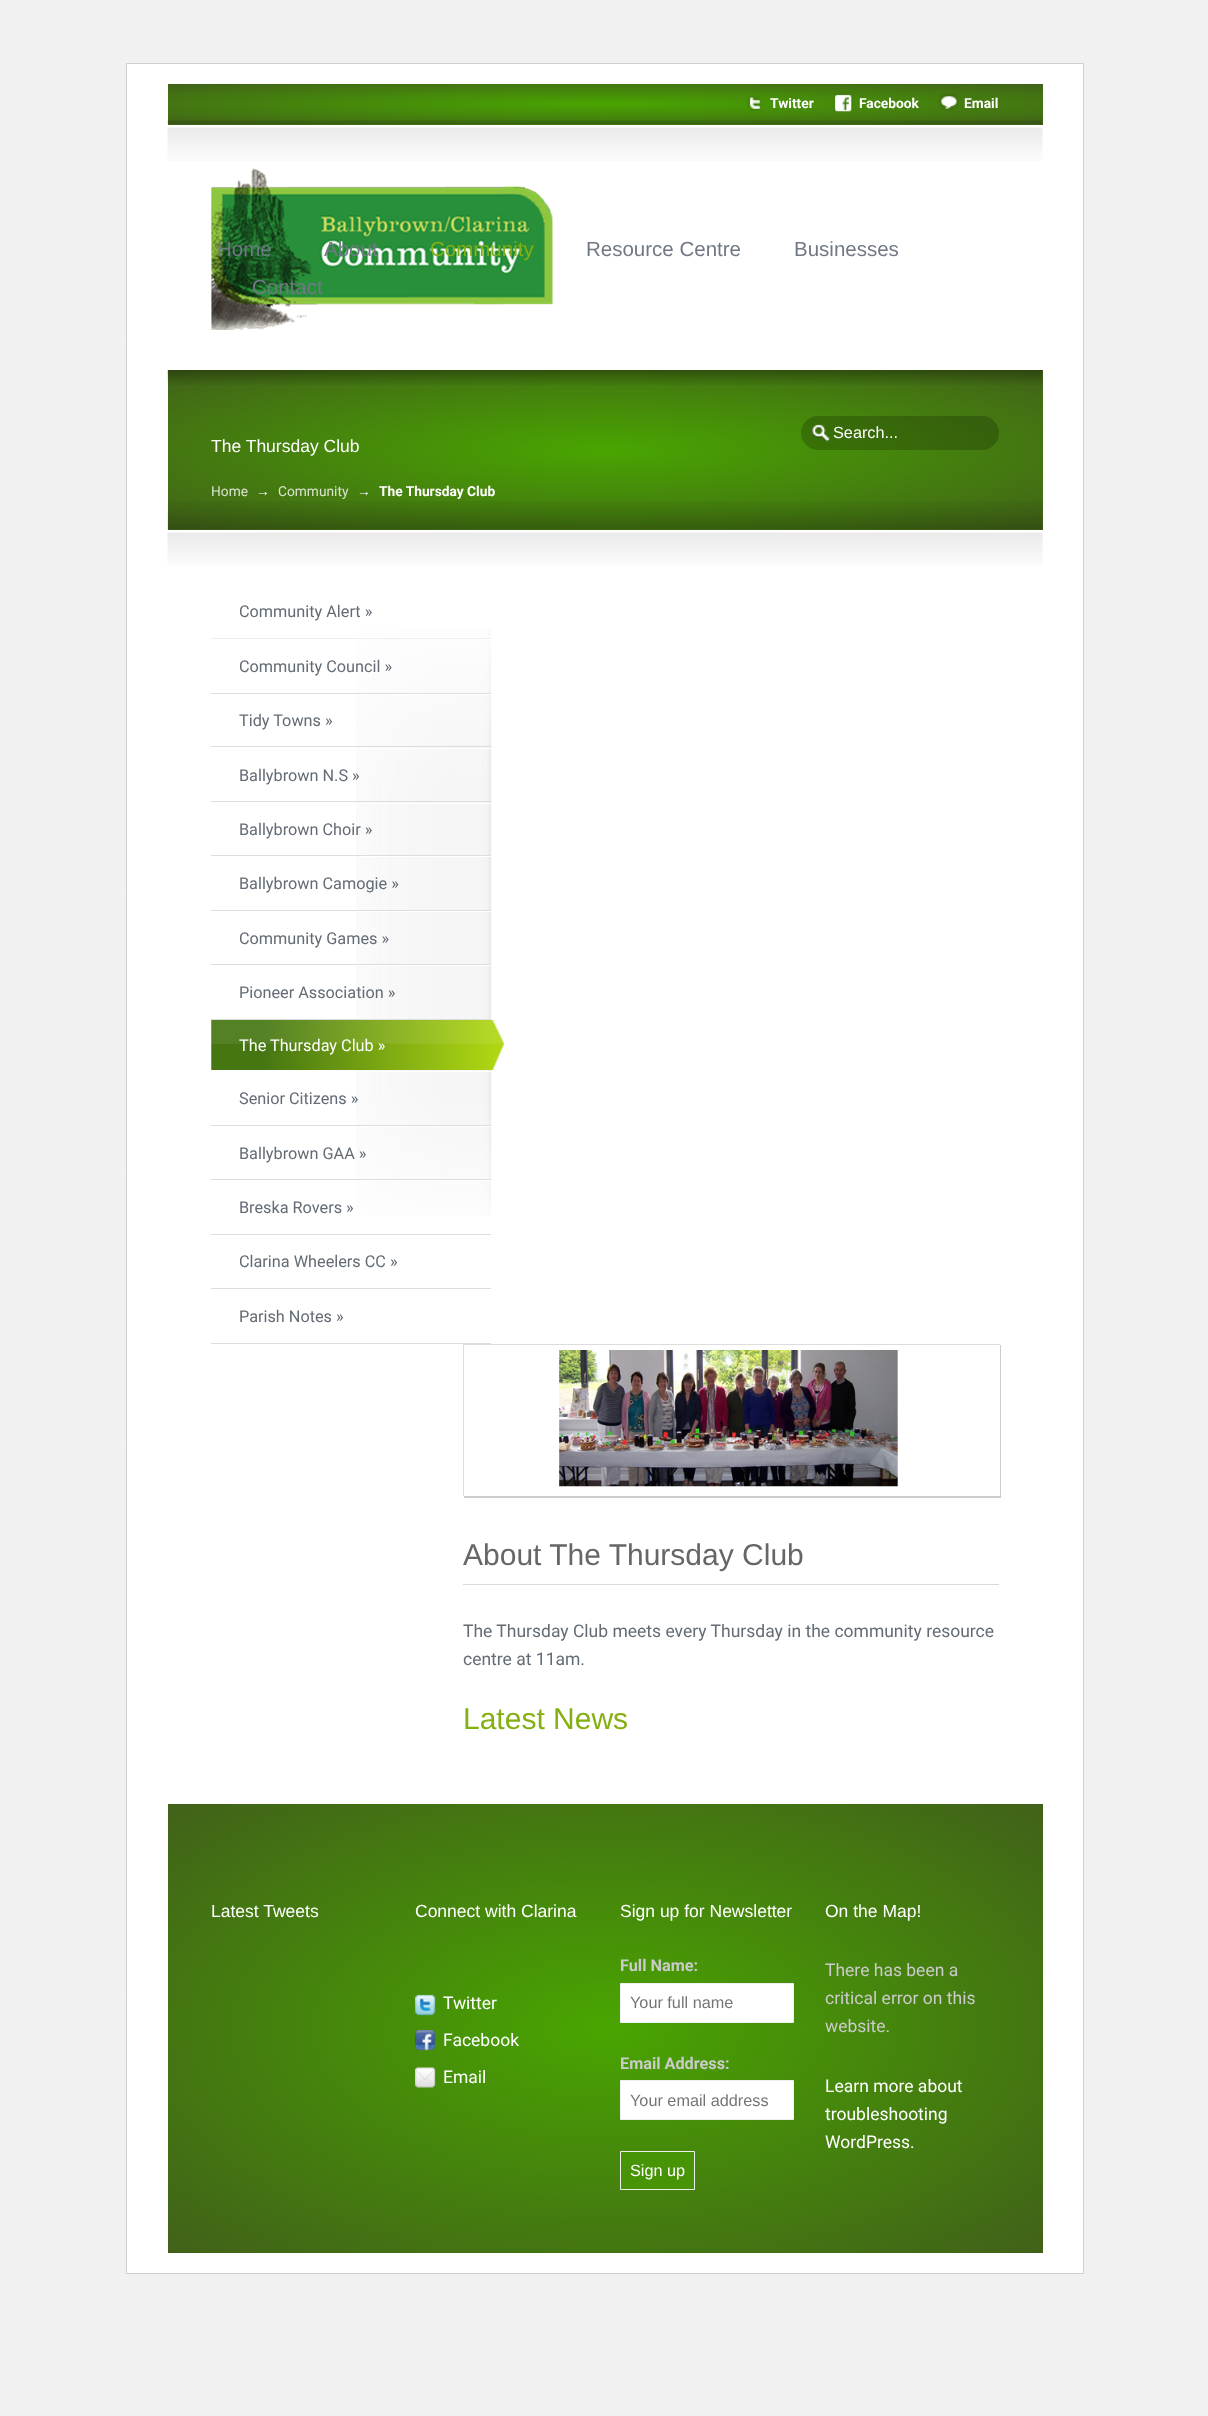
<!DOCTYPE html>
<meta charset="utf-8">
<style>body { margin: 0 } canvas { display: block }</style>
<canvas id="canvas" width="1208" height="2416"></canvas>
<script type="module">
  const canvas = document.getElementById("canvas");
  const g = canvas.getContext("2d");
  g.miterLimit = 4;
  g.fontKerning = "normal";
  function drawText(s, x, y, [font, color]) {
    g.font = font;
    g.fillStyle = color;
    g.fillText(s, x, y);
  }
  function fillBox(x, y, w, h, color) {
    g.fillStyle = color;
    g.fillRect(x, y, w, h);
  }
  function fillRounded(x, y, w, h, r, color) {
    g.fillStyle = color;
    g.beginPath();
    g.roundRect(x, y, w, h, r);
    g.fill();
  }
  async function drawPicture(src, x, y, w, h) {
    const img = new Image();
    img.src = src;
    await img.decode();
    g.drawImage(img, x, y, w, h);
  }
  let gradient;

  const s1 = ["bold 13.75px Roboto", "#FFFFFF"];
  const s2 = ["20.5px Liberation Sans", "#707885"];
  const s3 = ["20.5px Liberation Sans", "#84B011"];
  const s4 = ["16.25px Liberation Sans", "#FFFFFF"];
  const s5 = ["17.5px Liberation Sans", "#FFFFFF"];
  const s6 = ["13.75px Roboto", "#D9E3D0"];
  const s7 = ["13.75px Liberation Sans", "#FFFFFF"];
  const s8 = ["16.25px Roboto", "#636B75"];
  const s9 = ["16.25px Roboto", "#FFFFFF"];
  const s10 = ["30px Liberation Sans", "#666666"];
  const s11 = ["17.5px Roboto", "#636B75"];
  const s12 = ["30px Liberation Sans", "#84B011"];
  const s13 = ["17.5px Roboto", "#FFFFFF"];
  const s14 = ["bold 16.25px Roboto", "#CBCBCB"];
  const s15 = ["16.25px Liberation Sans", "#757575"];
  const s16 = ["17.5px Roboto", "#CBCBCB"];

  fillBox(0, 0, 1208, 2416, "#F1F1F1");
  g.fillStyle = "#FFFFFF";
  g.beginPath();
  g.rect(126.5, 63.5, 957, 2210);
  g.fill();
  g.strokeStyle = "#CCD0D4";
  g.stroke();
  gradient = g.createRadialGradient(605, 2219.86, 0, 605, 2219.86, 619);
  gradient.addColorStop(0, "#49A501");
  gradient.addColorStop(1, "#416119");
  g.fillStyle = gradient;
  g.beginPath();
  g.rect(168, 84, 875, 41);
  g.save();
  g.clip();
  g.scale(1, 29 / 619);
  g.fillRect(0, 0, 1208, 51570);
  g.restore();
  await drawPicture("pic1.png", 747, 96, 15, 15);
  drawText("Twitter", 770, 108, s1);
  await drawPicture("pic2.png", 833, 93, 20, 19);
  drawText("Facebook", 859, 108, s1);
  await drawPicture("pic3.png", 938, 93, 21, 18);
  drawText("Email", 964, 108, s1);
  await drawPicture("pic4.png", 167, 120, 876, 4);
  await drawPicture("pic5.png", 167, 127, 876, 34);
  await drawPicture("pic6.png", 211, 168, 342, 162);
  drawText("Home", 217, 256, s2);
  drawText("About", 324, 256, s2);
  drawText("Community", 430, 256, s3);
  drawText("Resource Centre", 586, 256, s2);
  drawText("Businesses", 794, 256, s2);
  drawText("Contact", 252, 294, s2);
  gradient = g.createRadialGradient(605, 2465.04, 0, 605, 2465.04, 619);
  gradient.addColorStop(0, "#49A501");
  gradient.addColorStop(1, "#416119");
  g.fillStyle = gradient;
  g.beginPath();
  g.rect(168, 370, 875, 160);
  g.save();
  g.clip();
  g.scale(1, 113 / 619);
  g.fillRect(0, 0, 1208, 13235);
  g.restore();
  await drawPicture("pic7.png", 167, 370, 876, 15);
  fillRounded(801, 416, 198, 34, 17, "rgba(0, 0, 0, 0.2)");
  await drawPicture("pic8.png", 812, 424, 18, 18);
  drawText("Search...", 833, 438, s4);
  drawText("The Thursday Club", 211, 452, s5);
  drawText("Home", 211, 496, s6);
  drawText("→", 256, 496, s7);
  drawText("Community", 278, 496, s6);
  drawText("→", 357, 496, s7);
  drawText("The Thursday Club", 379, 496, s1);
  await drawPicture("pic9.png", 167, 501, 876, 29);
  await drawPicture("pic10.png", 167, 532, 876, 34);
  await drawPicture("pic11.png", 356, 630, 136, 586);
  fillBox(211, 638, 280, 1, "#EEEEEE");
  drawText("Community Alert »", 239, 617, s8);
  fillBox(481, 639, 10, 1, "#FFFFFF");
  fillBox(211, 693, 280, 1, "#DCDDDE");
  drawText("Community Council »", 239, 672, s8);
  fillBox(356, 694, 135, 1, "#FFFFFF");
  fillBox(211, 746, 280, 1, "#DCDDDE");
  drawText("Tidy Towns »", 239, 726, s8);
  fillBox(356, 748, 135, 1, "#FFFFFF");
  fillBox(211, 801, 280, 1, "#DCDDDE");
  drawText("Ballybrown N.S »", 239, 781, s8);
  fillBox(356, 803, 135, 1, "#FFFFFF");
  fillBox(211, 855, 280, 1, "#DCDDDE");
  drawText("Ballybrown Choir »", 239, 835, s8);
  fillBox(356, 856, 135, 1, "#FFFFFF");
  fillBox(211, 910, 280, 1, "#DCDDDE");
  drawText("Ballybrown Camogie »", 239, 889, s8);
  fillBox(356, 911, 135, 1, "#FFFFFF");
  fillBox(211, 964, 280, 1, "#DCDDDE");
  drawText("Community Games »", 239, 944, s8);
  fillBox(356, 965, 135, 1, "#FFFFFF");
  fillBox(211, 1019, 280, 1, "#DCDDDE");
  drawText("Pioneer Association »", 239, 998, s8);
  await drawPicture("pic12.png", 211, 1020, 293, 50);
  drawText("The Thursday Club »", 239, 1051, s9);
  fillBox(356, 1071, 135, 1, "#FFFFFF");
  fillBox(211, 1125, 280, 1, "#DCDDDE");
  drawText("Senior Citizens »", 239, 1104, s8);
  fillBox(356, 1126, 135, 1, "#FFFFFF");
  fillBox(211, 1179, 280, 1, "#DCDDDE");
  drawText("Ballybrown GAA »", 239, 1159, s8);
  fillBox(361, 1180, 130, 1, "#FFFFFF");
  fillBox(211, 1234, 280, 1, "#DCDDDE");
  drawText("Breska Rovers »", 239, 1213, s8);
  fillBox(211, 1288, 280, 1, "#DCDDDE");
  drawText("Clarina Wheelers CC »", 239, 1267, s8);
  fillBox(211, 1343, 280, 1, "#DCDDDE");
  drawText("Parish Notes »", 239, 1322, s8);
  g.save();
  g.beginPath();
  g.moveTo(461, 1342);
  g.lineTo(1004, 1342);
  g.lineTo(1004, 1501);
  g.lineTo(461, 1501);
  g.closePath();
  g.moveTo(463, 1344);
  g.lineTo(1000, 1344);
  g.lineTo(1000, 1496);
  g.lineTo(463, 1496);
  g.closePath();
  g.clip("evenodd");
  g.fillStyle = "#CCCCCC";
  g.filter = "blur(0.5px)";
  g.beginPath();
  g.rect(464, 1345, 537, 153);
  g.fill();
  g.filter = "none";
  g.restore();
  fillBox(463, 1344, 537, 1, "#DDDDDD");
  fillBox(463, 1344, 1, 152, "#DDDDDD");
  await drawPicture("pic13.png", 559, 1350, 339, 137);
  fillBox(463, 1584, 536, 1, "#DADADA");
  drawText("About The Thursday Club", 463, 1565, s10);
  drawText("The Thursday Club meets every Thursday in the community resource", 463, 1637, s11);
  drawText("centre at 11am.", 463, 1665, s11);
  drawText("Latest News", 463, 1729, s12);
  gradient = g.createRadialGradient(605, 3960.04, 0, 605, 3960.04, 619);
  gradient.addColorStop(0, "#49A501");
  gradient.addColorStop(1, "#416119");
  g.fillStyle = gradient;
  g.beginPath();
  g.rect(168, 1804, 875, 449);
  g.save();
  g.clip();
  g.scale(1, 317 / 619);
  g.fillRect(0, 0, 1208, 4718);
  g.restore();
  drawText("Latest Tweets", 211, 1917, s5);
  drawText("Connect with Clarina", 415, 1917, s5);
  await drawPicture("pic14.png", 415, 1994, 21, 22);
  drawText("Twitter", 443, 2009, s13);
  await drawPicture("pic15.png", 415, 2030, 21, 21);
  drawText("Facebook", 443, 2046, s13);
  await drawPicture("pic16.png", 415, 2067, 21, 21);
  drawText("Email", 443, 2083, s13);
  drawText("Sign up for Newsletter", 620, 1917, s5);
  drawText("Full Name:", 620, 1971, s14);
  g.fillStyle = "#FFFFFF";
  g.beginPath();
  g.rect(620.5, 1983.5, 173, 39);
  g.fill();
  g.strokeStyle = "#EFEFEF";
  g.stroke();
  drawText("Your full name", 630, 2008, s15);
  drawText("Email Address:", 620, 2069, s14);
  g.fillStyle = "#FFFFFF";
  g.beginPath();
  g.rect(620.5, 2080.5, 173, 39);
  g.fill();
  g.stroke();
  drawText("Your email address", 630, 2106, s15);
  g.fillStyle = "#479407";
  g.beginPath();
  g.rect(620.5, 2151.5, 74, 38);
  g.fill();
  g.stroke();
  drawText("Sign up", 630, 2176, s4);
  drawText("On the Map!", 825, 1917, s5);
  drawText("There has been a", 825, 1976, s16);
  drawText("critical error on this", 825, 2004, s16);
  drawText("website.", 825, 2032, s16);
  drawText("Learn more about", 825, 2092, s13);
  drawText("troubleshooting", 825, 2120, s13);
  drawText("WordPress.", 825, 2148, s13);
</script>
